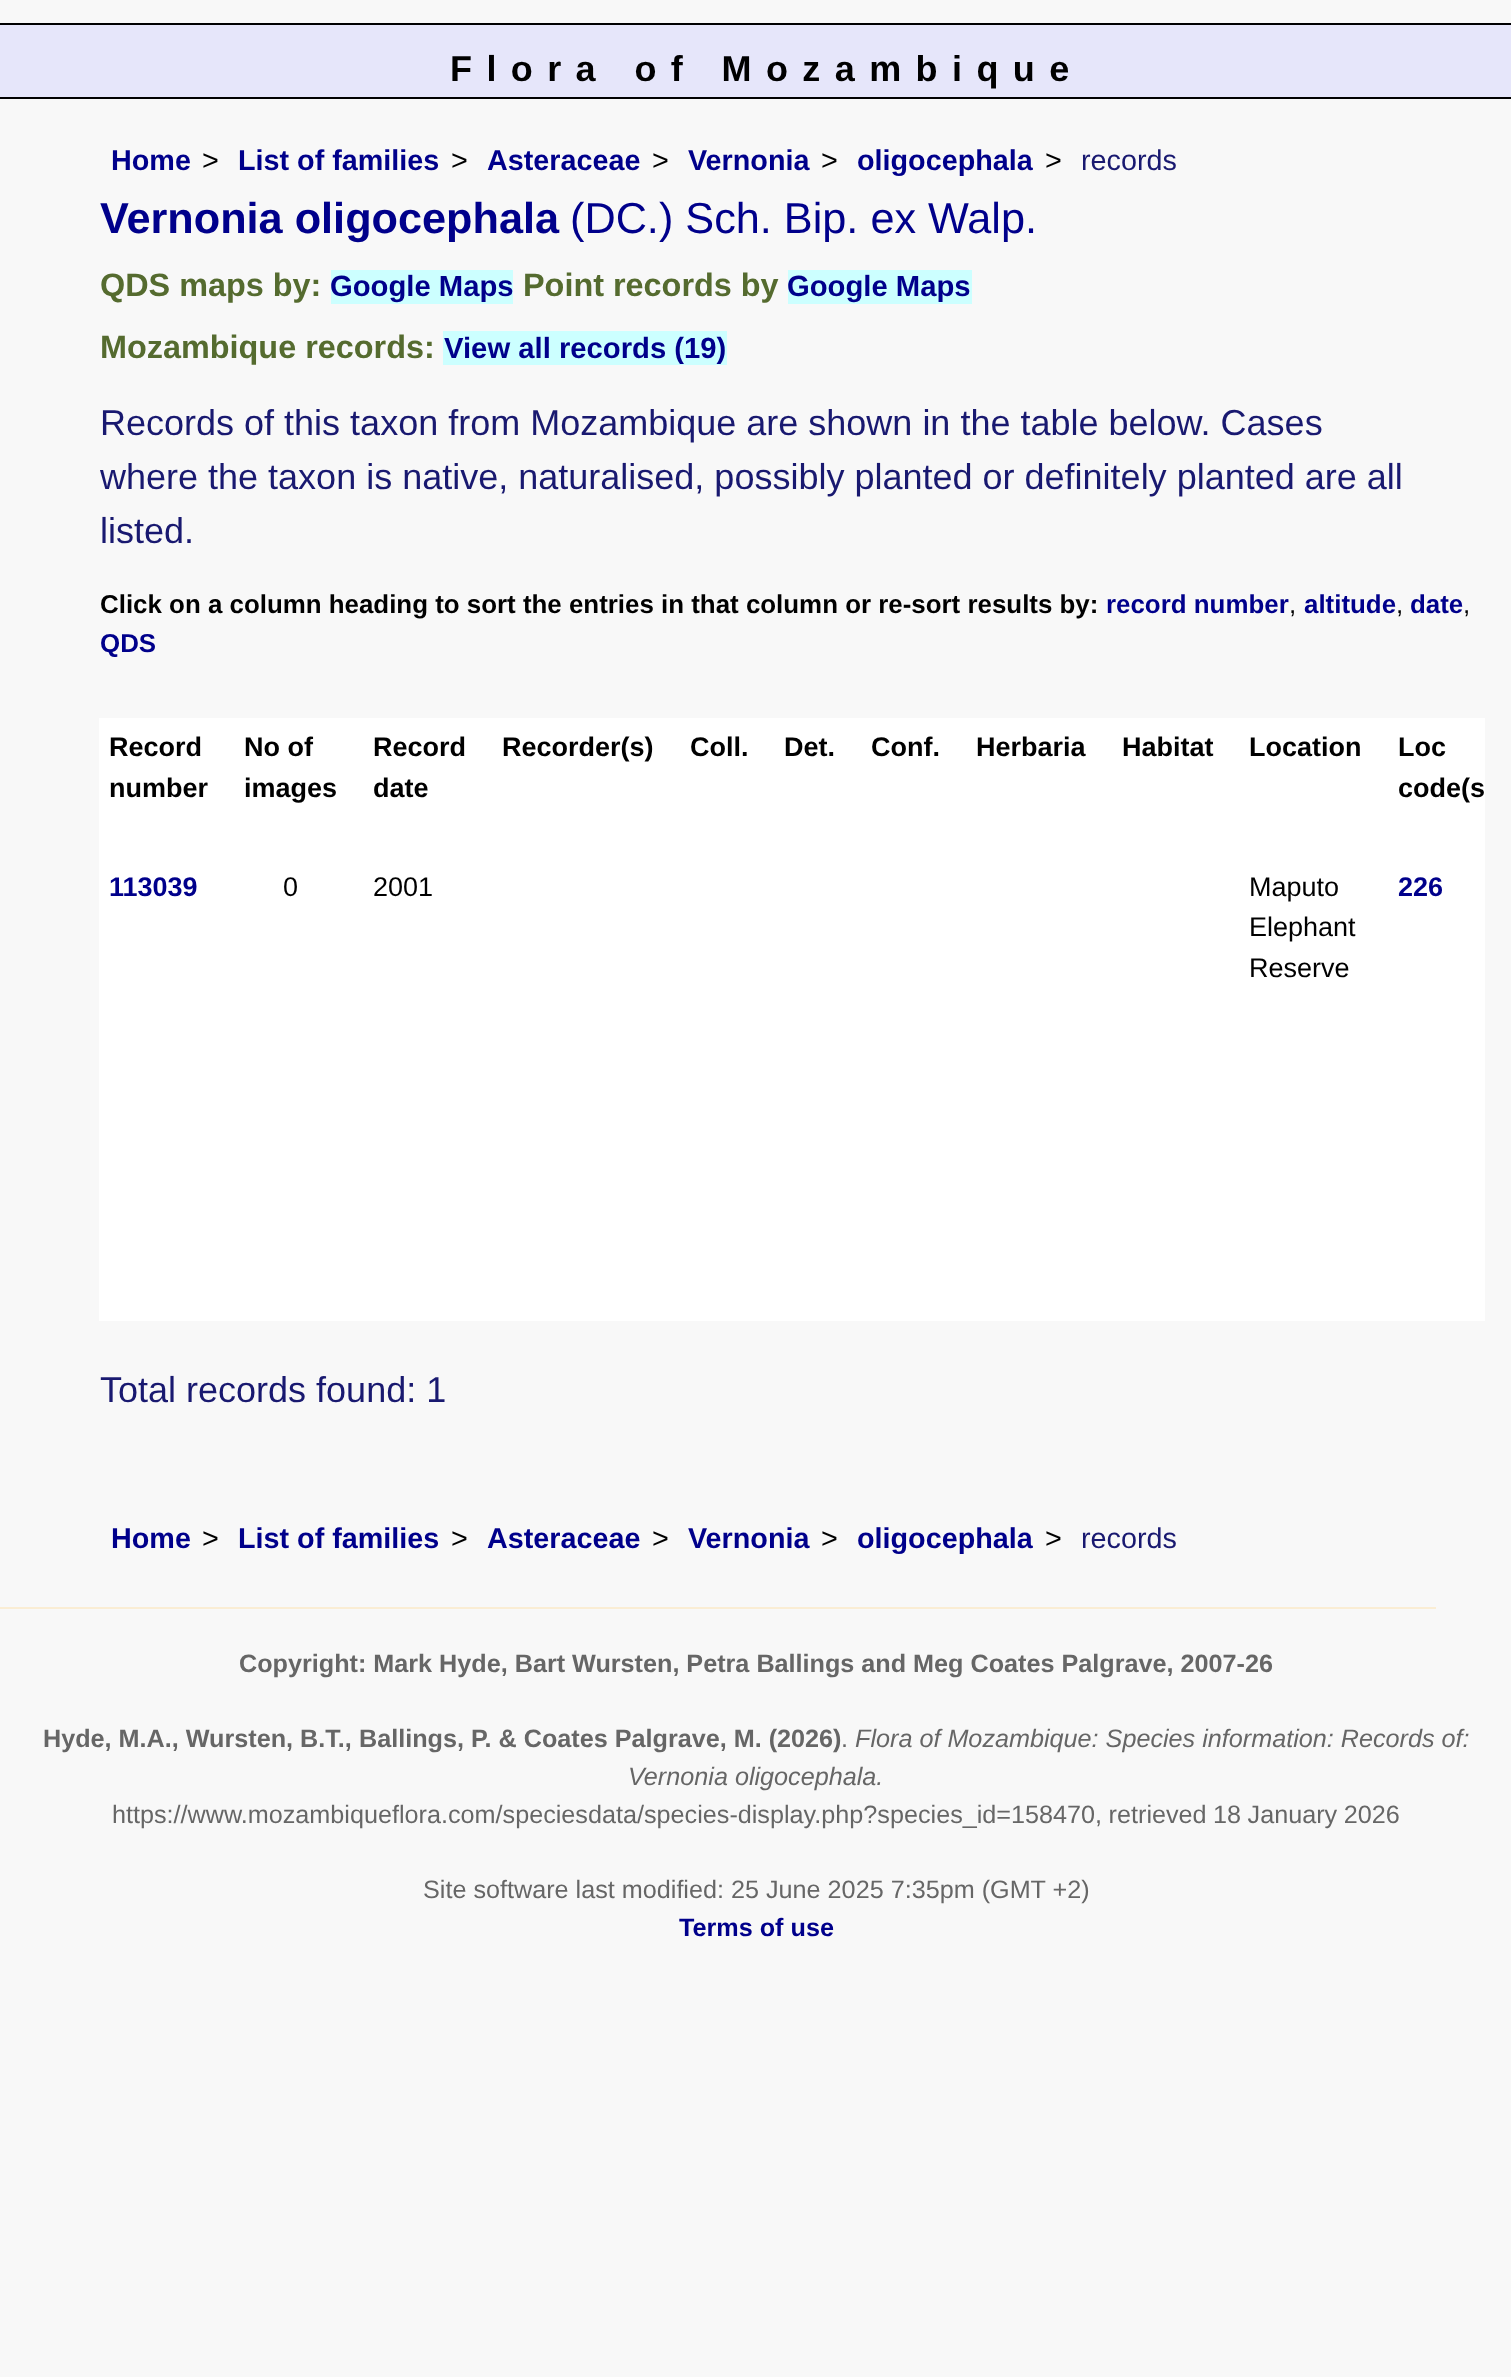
<!DOCTYPE html>
<meta charset="utf-8">
<style>body { margin: 0 } canvas { display: block }</style>
<canvas id="canvas" width="1511" height="2377"></canvas>
<script type="module">
  const canvas = document.getElementById("canvas");
  const g = canvas.getContext("2d");
  g.miterLimit = 4;
  g.fontKerning = "normal";
  function drawText(s, x, y, [font, color]) {
    g.font = font;
    g.fillStyle = color;
    g.fillText(s, x, y);
  }
  function fillBox(x, y, w, h, color) {
    g.fillStyle = color;
    g.fillRect(x, y, w, h);
  }

  const s1 = ["bold 36px Liberation Sans", "#000000"];
  const s2 = ["bold 28.75px Liberation Sans", "#00008B"];
  const s3 = ["28.75px Liberation Sans", "#000000"];
  const s4 = ["28.75px Liberation Sans", "#191970"];
  const s5 = ["bold 43.25px Liberation Sans", "#00008B"];
  const s6 = ["43.25px Liberation Sans", "#00008B"];
  const s7 = ["bold 32.4px Liberation Sans", "#556B2F"];
  const s8 = ["bold 29.25px Liberation Sans", "#00008B"];
  const s9 = ["36px Liberation Sans", "#191970"];
  const s10 = ["bold 25.9px Liberation Sans", "#000000"];
  const s11 = ["bold 25.9px Liberation Sans", "#00008B"];
  const s12 = ["25.9px Liberation Sans", "#000000"];
  const s13 = ["bold 27px Liberation Sans", "#000000"];
  const s14 = ["bold 27px Liberation Sans", "#00008B"];
  const s15 = ["27px Liberation Sans", "#000000"];
  const s16 = ["bold 25.2px Liberation Sans", "#666666"];
  const s17 = ["25.2px Liberation Sans", "#666666"];
  const s18 = ["italic 25.2px Liberation Sans", "#666666"];
  const s19 = ["bold 25.2px Liberation Sans", "#00008B"];

  fillBox(0, 0, 1511, 2377, "#F8F8F8");
  fillBox(0, 25, 1511, 72, "#E6E6FA");
  fillBox(0, 23, 1511, 2, "#000000");
  fillBox(0, 97, 1511, 2, "#000000");
  g.letterSpacing = "14.4px";
  drawText("Flora of Mozambique", 450, 81, s1);
  g.letterSpacing = "0px";
  drawText("Home", 111, 170, s2);
  drawText(">", 202, 170, s3);
  drawText("List of families", 238, 170, s2);
  drawText(">", 451, 170, s3);
  drawText("Asteraceae", 487, 170, s2);
  drawText(">", 652, 170, s3);
  drawText("Vernonia", 688, 170, s2);
  drawText(">", 821, 170, s3);
  drawText("oligocephala", 857, 170, s2);
  drawText(">", 1045, 170, s3);
  drawText("records", 1081, 170, s4);
  drawText("Vernonia oligocephala", 100, 233, s5);
  drawText("(DC.) Sch. Bip. ex Walp.", 570, 233, s6);
  drawText("QDS maps by:", 100, 296, s7);
  fillBox(331, 270, 182, 34, "#CCFFFF");
  drawText("Google Maps", 330, 296, s8);
  drawText("Point records by", 523, 296, s7);
  fillBox(788, 270, 184, 34, "#CCFFFF");
  drawText("Google Maps", 787, 296, s8);
  drawText("Mozambique records:", 100, 358, s7);
  fillBox(443, 331, 284, 34, "#CCFFFF");
  drawText("View all records (19)", 444, 358, s8);
  drawText("Records of this taxon from Mozambique are shown in the table below. Cases", 100, 435, s9);
  drawText("where the taxon is native, naturalised, possibly planted or definitely planted are all", 100, 489, s9);
  drawText("listed.", 100, 543, s9);
  drawText("Click on a column heading to sort the entries in that column or re-sort results by:", 100, 613, s10);
  drawText("record number", 1106, 613, s11);
  drawText(",", 1289, 613, s12);
  drawText("altitude", 1304, 613, s11);
  drawText(",", 1396, 613, s12);
  drawText("date", 1410, 613, s11);
  drawText(",", 1463, 613, s12);
  drawText("QDS", 100, 652, s11);
  fillBox(99, 718, 1386, 603, "#FFFFFF");
  drawText("Record", 109, 756, s13);
  drawText("number", 109, 797, s13);
  drawText("No of", 244, 756, s13);
  drawText("images", 244, 797, s13);
  drawText("Record", 373, 756, s13);
  drawText("date", 373, 797, s13);
  drawText("Recorder(s)", 502, 756, s13);
  drawText("Coll.", 690, 756, s13);
  drawText("Det.", 784, 756, s13);
  drawText("Conf.", 871, 756, s13);
  drawText("Herbaria", 976, 756, s13);
  drawText("Habitat", 1122, 756, s13);
  drawText("Location", 1249, 756, s13);
  drawText("Loc", 1398, 756, s13);
  drawText("code(s", 1398, 797, s13);
  drawText("113039", 109, 896, s14);
  drawText("0", 283, 896, s15);
  drawText("2001", 373, 896, s15);
  drawText("Maputo", 1249, 896, s15);
  drawText("Elephant", 1249, 936, s15);
  drawText("Reserve", 1249, 977, s15);
  drawText("226", 1398, 896, s14);
  drawText("Total records found: 1", 100, 1402, s9);
  drawText("Home", 111, 1548, s2);
  drawText(">", 202, 1548, s3);
  drawText("List of families", 238, 1548, s2);
  drawText(">", 451, 1548, s3);
  drawText("Asteraceae", 487, 1548, s2);
  drawText(">", 652, 1548, s3);
  drawText("Vernonia", 688, 1548, s2);
  drawText(">", 821, 1548, s3);
  drawText("oligocephala", 857, 1548, s2);
  drawText(">", 1045, 1548, s3);
  drawText("records", 1081, 1548, s4);
  fillBox(0, 1607, 1436, 2, "#FAEDD4");
  drawText("Copyright: Mark Hyde, Bart Wursten, Petra Ballings and Meg Coates Palgrave, 2007-26", 239, 1672, s16);
  drawText("Hyde, M.A., Wursten, B.T.,", 43, 1747, s16);
  drawText("Ballings, P. & Coates Palgrave, M. (2026)", 359, 1747, s16);
  drawText(".", 841, 1747, s17);
  drawText("Flora of Mozambique: Species information: Records of:", 855, 1747, s18);
  drawText("Vernonia oligocephala.", 628, 1785, s18);
  g.wordSpacing = "-0.5px";
  drawText("https://www.mozambiqueflora.com/speciesdata/species-display.php?species_id=158470, retrieved 18 January 2026", 112, 1823, s17);
  g.wordSpacing = "0px";
  drawText("Site software last modified: 25 June 2025 7:35pm (GMT +2)", 423, 1898, s17);
  drawText("Terms of use", 679, 1936, s19);
</script>
